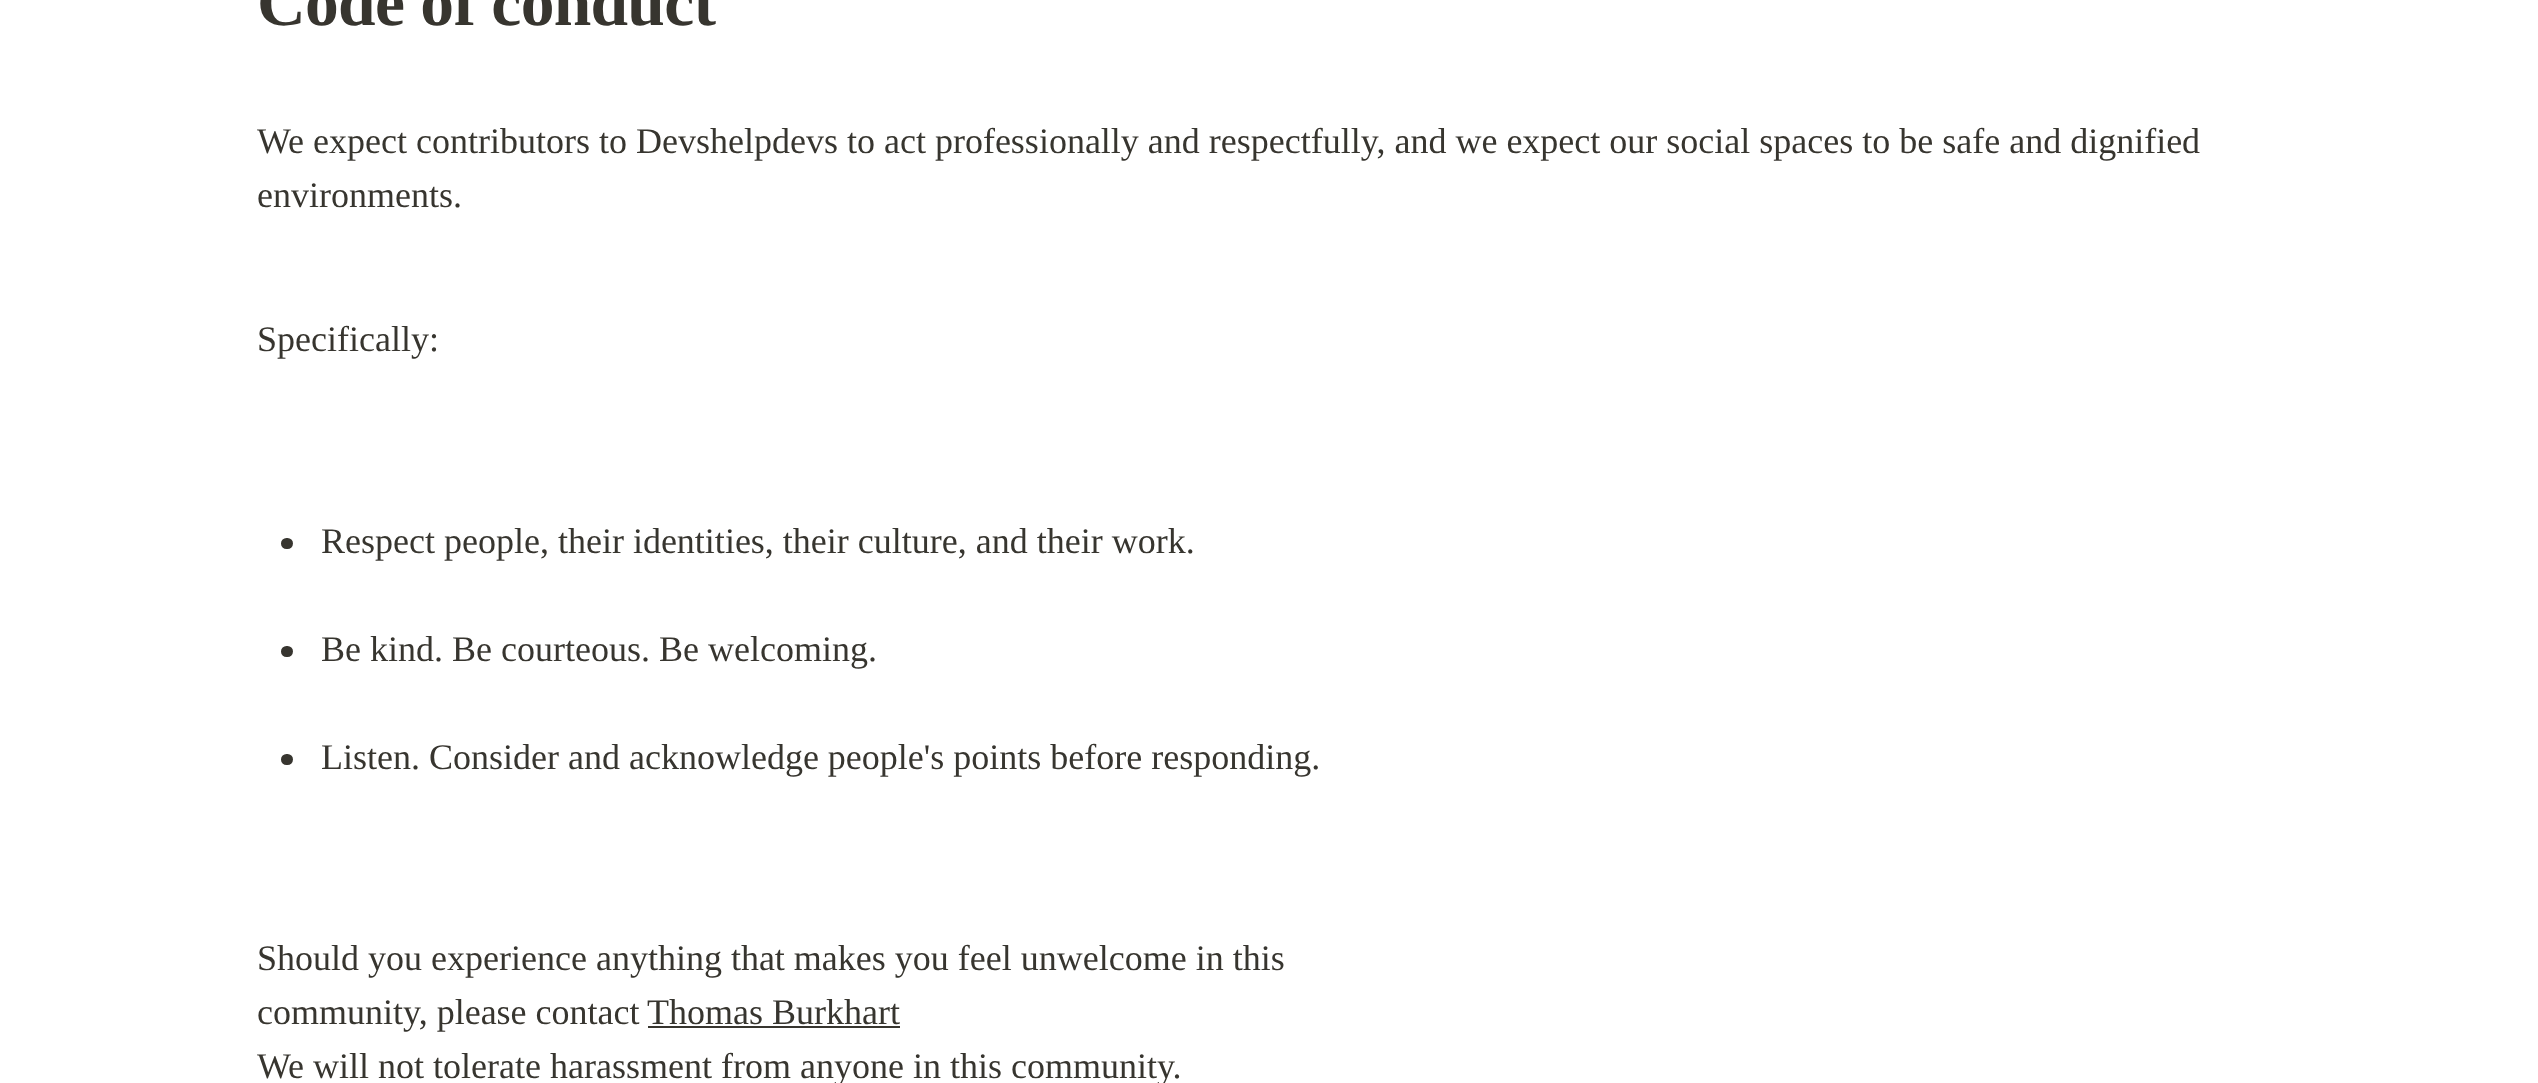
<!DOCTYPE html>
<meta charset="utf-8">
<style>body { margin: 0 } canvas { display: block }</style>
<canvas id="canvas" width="2538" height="1083"></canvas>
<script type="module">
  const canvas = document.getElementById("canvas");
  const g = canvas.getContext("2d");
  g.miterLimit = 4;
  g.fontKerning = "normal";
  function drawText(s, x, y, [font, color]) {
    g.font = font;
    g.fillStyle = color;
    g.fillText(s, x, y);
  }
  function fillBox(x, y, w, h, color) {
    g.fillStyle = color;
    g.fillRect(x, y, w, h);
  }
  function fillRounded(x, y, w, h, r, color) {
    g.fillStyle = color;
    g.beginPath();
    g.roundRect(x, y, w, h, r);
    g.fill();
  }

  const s1 = ["bold 67.5px Liberation Serif", "#37352F"];
  const s2 = ["36px Liberation Serif", "#37352F"];

  fillBox(0, 0, 2538, 1083, "#FFFFFF");
  g.letterSpacing = "-0.7px";
  drawText("Code of conduct", 257, 25, s1);
  g.letterSpacing = "0px";
  drawText("We expect contributors to Devshelpdevs to act professionally and respectfully, and we expect our social spaces to be safe and dignified", 257, 153, s2);
  drawText("environments.", 257, 207, s2);
  drawText("Specifically:", 257, 351, s2);
  fillRounded(281, 538, 12, 11, 5.5, "#37352F");
  drawText("Respect people, their identities, their culture, and their work.", 321, 553, s2);
  fillRounded(281, 646, 12, 11, 5.5, "#37352F");
  drawText("Be kind. Be courteous. Be welcoming.", 321, 661, s2);
  fillRounded(281, 754, 12, 11, 5.5, "#37352F");
  drawText("Listen. Consider and acknowledge people's points before responding.", 321, 769, s2);
  drawText("Should you experience anything that makes you feel unwelcome in this", 257, 970, s2);
  drawText("community, please contact", 257, 1024, s2);
  drawText("Thomas Burkhart", 647, 1024, s2);
  fillBox(648, 1026, 252, 2, "#37352F");
  drawText("We will not tolerate harassment from anyone in this community.", 257, 1078, s2);
</script>
